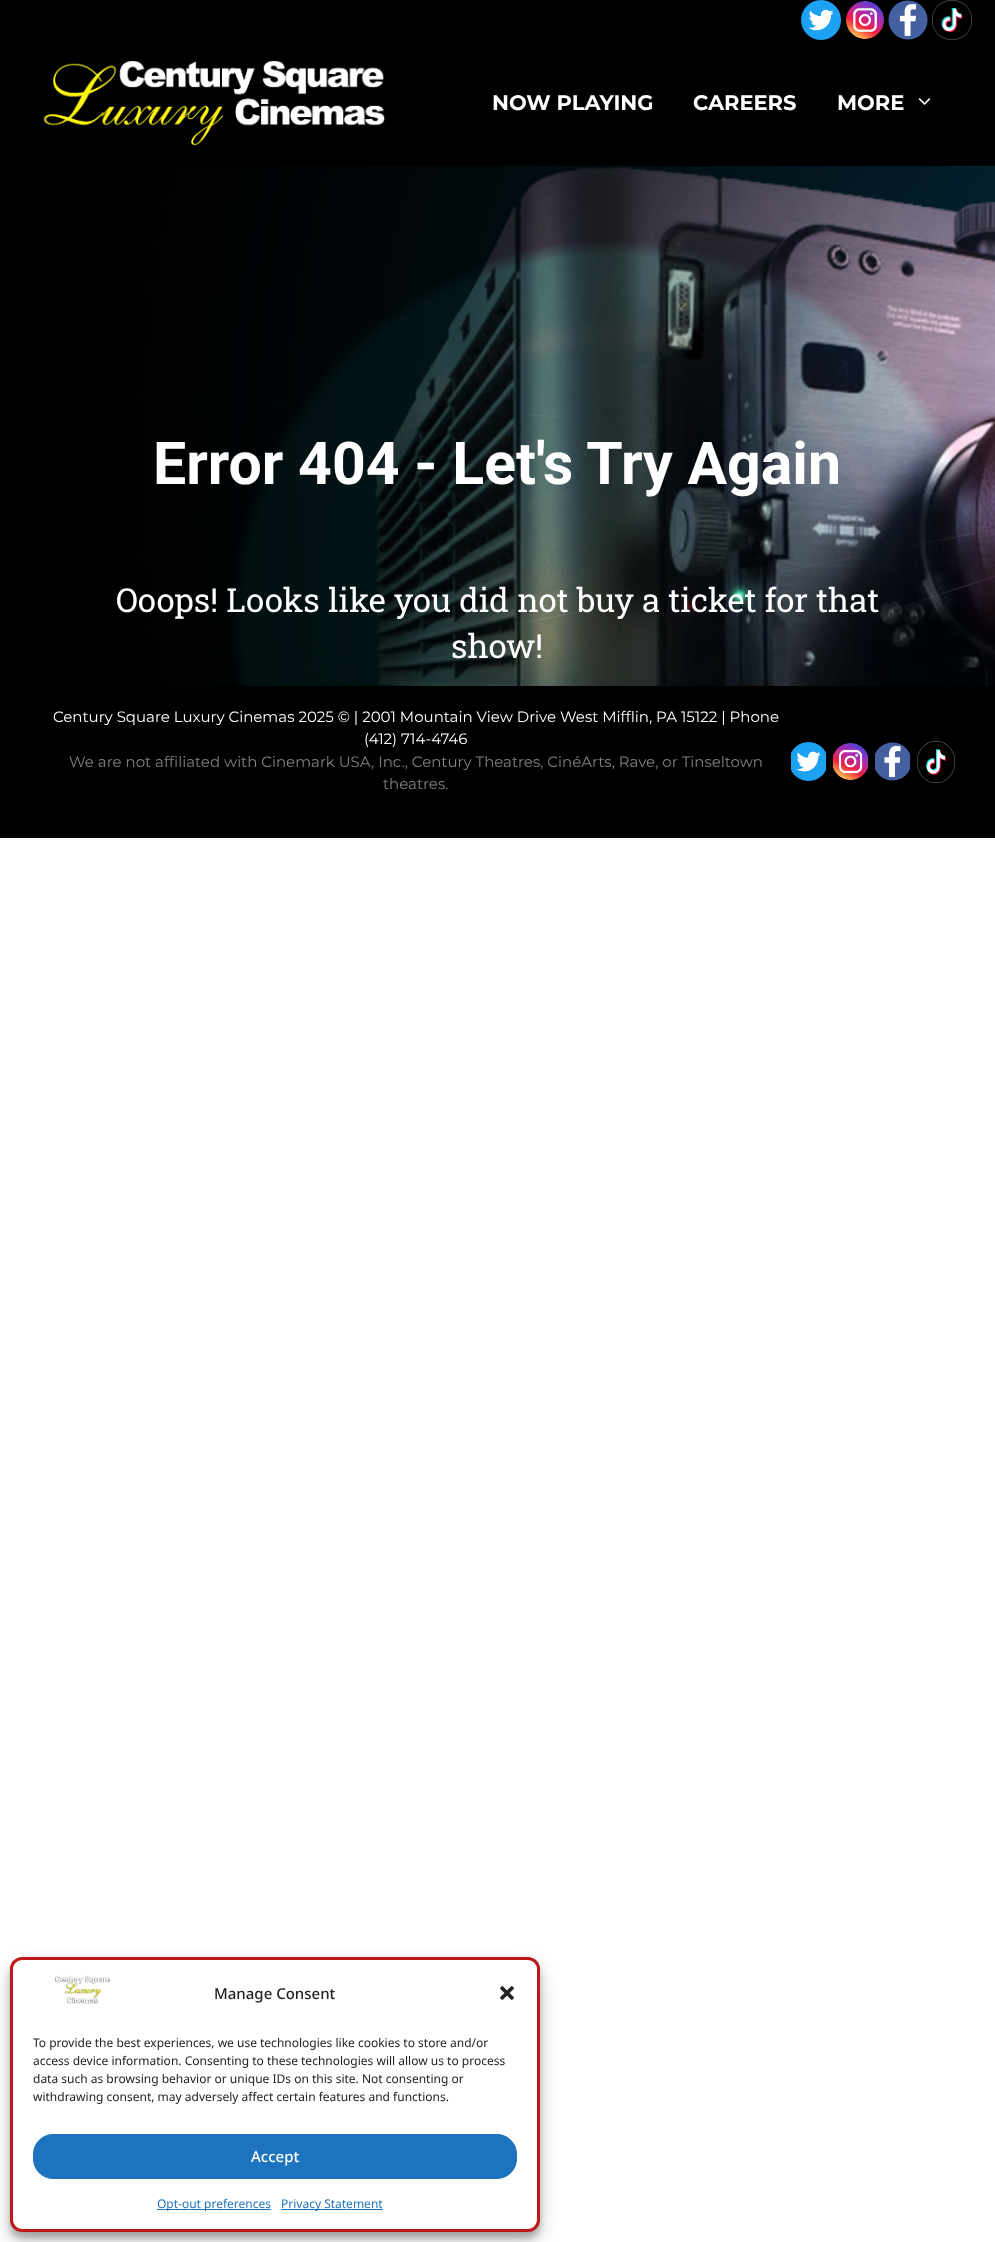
<!DOCTYPE html>
<meta charset="utf-8">
<style>body { margin: 0 } canvas { display: block }</style>
<canvas id="canvas" width="995" height="2242"></canvas>
<script type="module">
  const canvas = document.getElementById("canvas");
  const g = canvas.getContext("2d");
  g.miterLimit = 4;
  g.fontKerning = "normal";
  function drawText(s, x, y, [font, color]) {
    g.font = font;
    g.fillStyle = color;
    g.fillText(s, x, y);
  }
  function fillBox(x, y, w, h, color) {
    g.fillStyle = color;
    g.fillRect(x, y, w, h);
  }
  async function drawPicture(src, x, y, w, h) {
    const img = new Image();
    img.src = src;
    await img.decode();
    g.drawImage(img, x, y, w, h);
  }

  const s1 = ["13px Noto Sans", "#F6C3D4"];
  const s2 = ["13px Noto Sans", "#DBE1ED"];
  const s3 = ["13px Noto Sans", "#A5EAE8"];
  const s4 = ["bold 21px Montserrat", "#FFFFFF"];
  const s5 = ["bold 59px Roboto", "#FFFFFF"];
  const s6 = ["33px Roboto Slab", "#FFFFFF"];
  const s7 = ["15px Montserrat", "#FFFFFF"];
  const s8 = ["15px Montserrat", "#808080"];
  const s9 = ["500 15px Noto Sans", "#222222"];
  const s10 = ["12px Noto Sans", "#222222"];
  const s11 = ["500 15px Noto Sans", "#FFFFFF"];
  const s12 = ["12px Noto Sans", "#1E73BE"];

  fillBox(0, 0, 995, 2242, "#FFFFFF");
  fillBox(0, 0, 995, 166, "#000000");
  await drawPicture("pic1.png", 801, 0, 40, 40);
  await drawPicture("pic2.png", 846, 1, 38, 38);
  drawText(".", 865, 25, s1);
  await drawPicture("pic3.png", 888, 0, 40, 40);
  drawText(".", 908, 25, s2);
  await drawPicture("pic4.png", 932, 0, 40, 40);
  drawText(".", 952, 25, s3);
  await drawPicture("pic5.png", 43, 61, 342, 85);
  drawText("NOW PLAYING", 492, 110, s4);
  drawText("CAREERS", 693, 110, s4);
  drawText("MORE", 837, 110, s4);
  await drawPicture("pic6.png", 918, 98, 13, 7);
  fillBox(0, 166, 132, 520, "#000000");
  await drawPicture("pic7.png", 132, 166, 863, 520);
  drawText("Error 404 - Let's Try Again", 153, 484, s5);
  drawText("Ooops! Looks like you did not buy a ticket for that", 116, 612, s6);
  drawText("show!", 451, 658, s6);
  fillBox(0, 686, 995, 152, "#000000");
  drawText("Century Square Luxury Cinemas 2025 © | 2001 Mountain View Drive West Mifflin, PA 15122 | Phone", 53, 722, s7);
  drawText("(412) 714-4746", 364, 744, s7);
  drawText("We are not affiliated with Cinemark USA, Inc., Century Theatres, CinéArts, Rave, or Tinseltown", 69, 767, s8);
  drawText("theatres.", 383, 789, s8);
  await drawPicture("pic8.png", 791, 742, 35, 39);
  await drawPicture("pic9.png", 833, 743, 35, 37);
  await drawPicture("pic10.png", 875, 742, 35, 39);
  await drawPicture("pic11.png", 917, 741, 38, 42);
  g.fillStyle = "rgba(0, 0, 0, 0.23)";
  g.filter = "blur(3px)";
  g.beginPath();
  g.roundRect(10, 1963, 530, 275, 12);
  g.fill();
  g.filter = "none";
  g.fillStyle = "rgba(0, 0, 0, 0.19)";
  g.filter = "blur(10px)";
  g.beginPath();
  g.roundRect(10, 1967, 530, 275, 12);
  g.fill();
  g.filter = "none";
  g.fillStyle = "#FFFFFF";
  g.beginPath();
  g.roundRect(11.5, 1958.5, 527, 272, 10.5);
  g.fill();
  g.strokeStyle = "#BE1818";
  g.lineWidth = 3;
  g.stroke();
  await drawPicture("pic12.png", 54, 1975, 57, 29);
  drawText("Manage Consent", 214, 1999, s9);
  await drawPicture("pic13.png", 500, 1986, 14, 14);
  drawText("To provide the best experiences, we use technologies like cookies to store and/or", 33, 2047, s10);
  drawText("access device information. Consenting to these technologies will allow us to process", 33, 2065, s10);
  drawText("data such as browsing behavior or unique IDs on this site. Not consenting or", 33, 2083, s10);
  drawText("withdrawing consent, may adversely affect certain features and functions.", 33, 2101, s10);
  g.fillStyle = "#1E73BE";
  g.beginPath();
  g.roundRect(33.5, 2134.5, 483, 44, 19.5);
  g.fill();
  g.strokeStyle = "#1E73BE";
  g.lineWidth = 1;
  g.stroke();
  drawText("Accept", 251, 2162, s11);
  fillBox(157, 2209, 114, 1, "#1E73BE");
  drawText("Opt-out preferences", 157, 2208, s12);
  fillBox(281, 2209, 102, 1, "#1E73BE");
  drawText("Privacy Statement", 281, 2208, s12);
</script>
